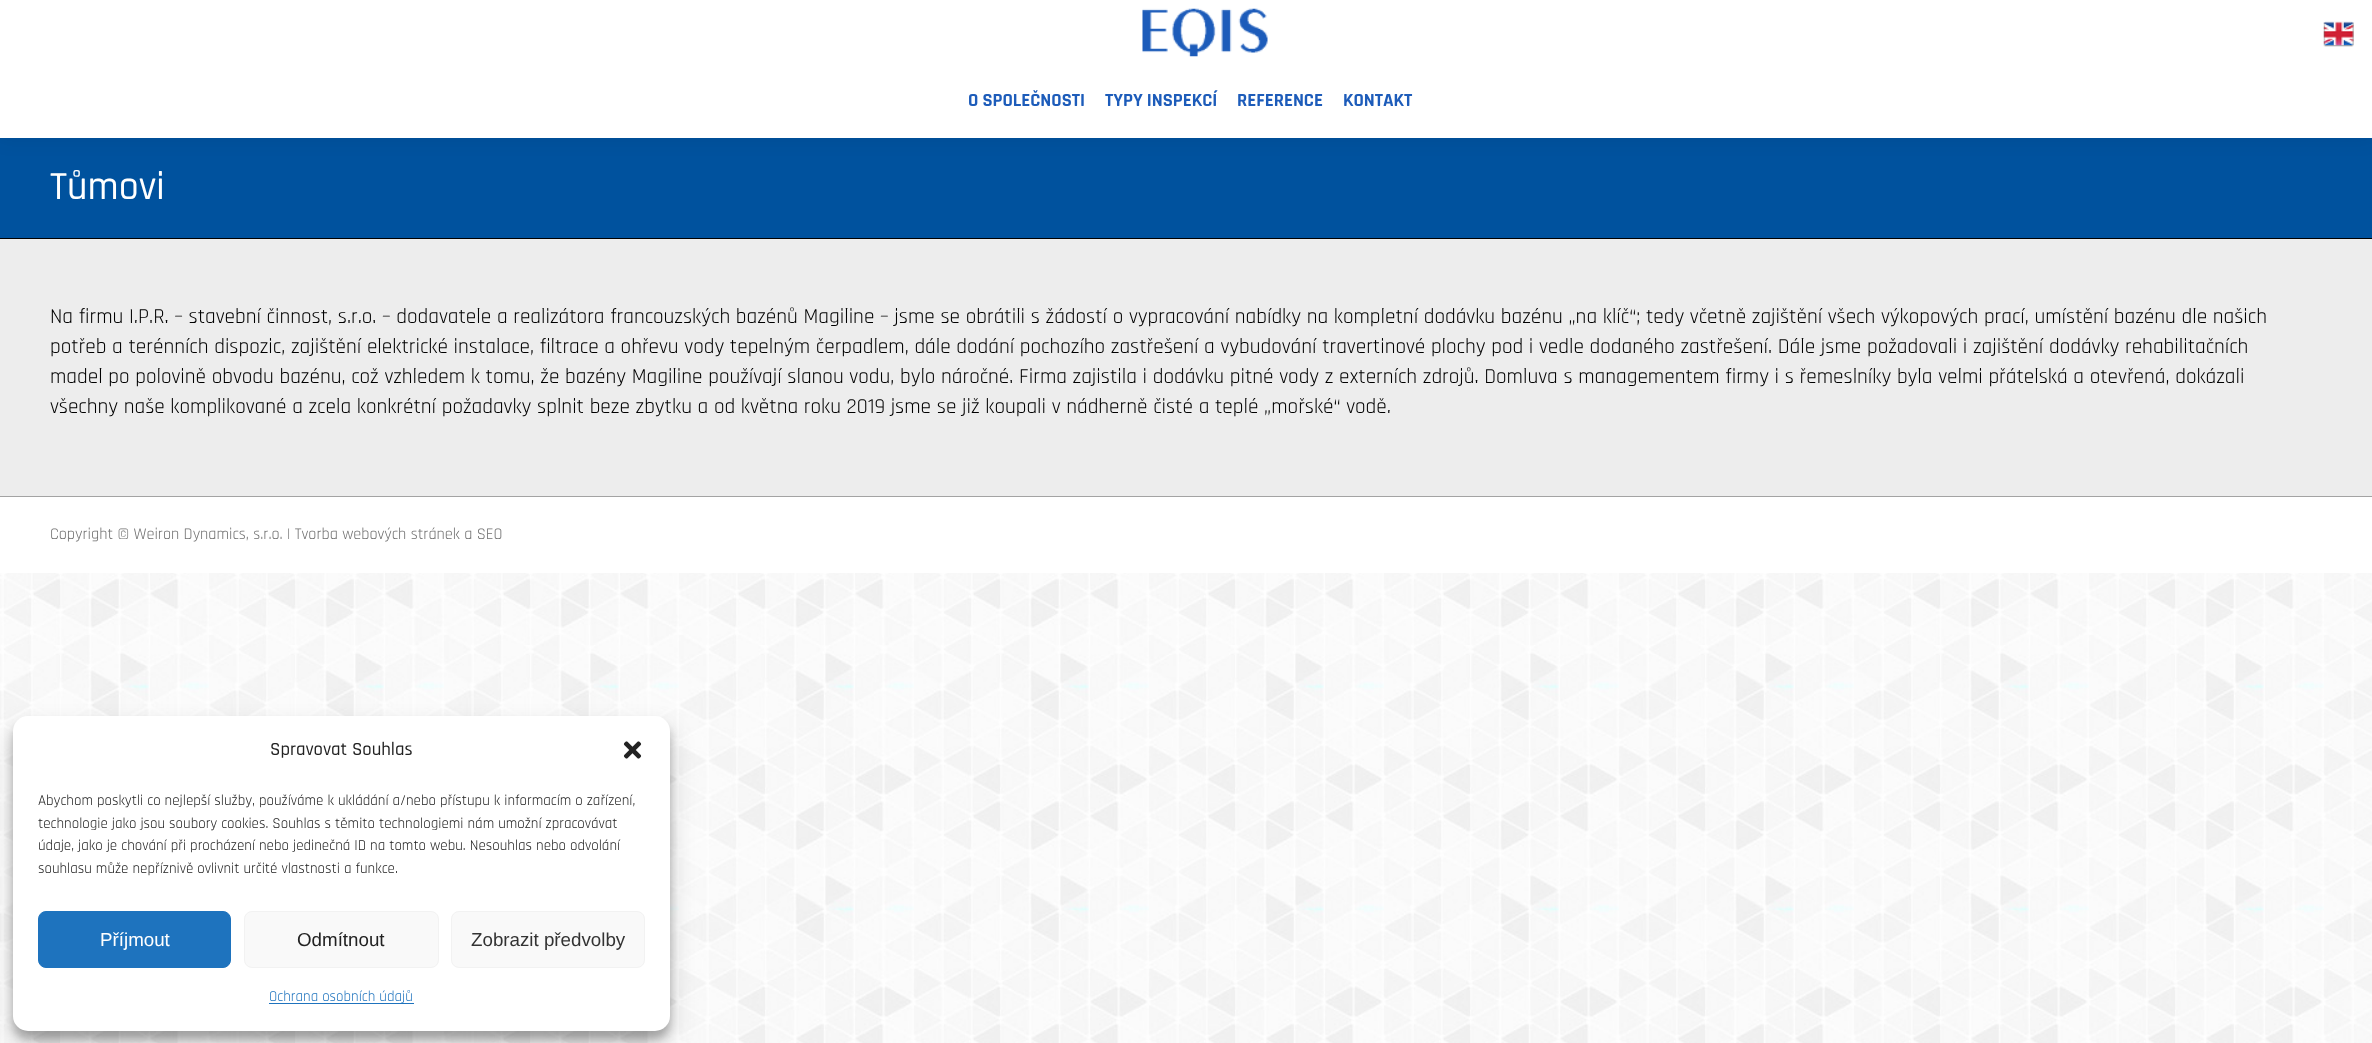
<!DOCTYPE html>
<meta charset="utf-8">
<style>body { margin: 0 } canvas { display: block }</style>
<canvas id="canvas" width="2372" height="1043"></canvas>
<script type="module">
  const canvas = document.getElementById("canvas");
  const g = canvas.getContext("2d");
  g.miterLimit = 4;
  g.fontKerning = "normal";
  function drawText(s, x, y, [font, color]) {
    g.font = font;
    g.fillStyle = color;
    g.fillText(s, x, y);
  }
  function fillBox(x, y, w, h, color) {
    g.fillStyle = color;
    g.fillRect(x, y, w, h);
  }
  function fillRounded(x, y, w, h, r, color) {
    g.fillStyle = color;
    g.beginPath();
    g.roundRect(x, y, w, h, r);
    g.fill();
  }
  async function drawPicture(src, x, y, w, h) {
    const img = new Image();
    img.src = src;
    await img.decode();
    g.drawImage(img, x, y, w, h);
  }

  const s1 = ["bold 18.75px Rajdhani", "#1D5CBA"];
  const s2 = ["500 40px Rajdhani", "#FFFFFF"];
  const s3 = ["21.25px Rajdhani", "#000000"];
  const s4 = ["16.25px Rajdhani", "#707070"];
  const s5 = ["500 18.75px Rajdhani", "#222222"];
  const s6 = ["15px Rajdhani", "#222222"];
  const s7 = ["18.75px Liberation Sans", "#FFFFFF"];
  const s8 = ["18.75px Liberation Sans", "#222222"];
  const s9 = ["18.75px Liberation Sans", "#333333"];
  const s10 = ["15px Rajdhani", "#1E73BE"];

  fillBox(0, 0, 2372, 1043, "#FFFFFF");
  await drawPicture("pic1.png", 0, 573, 2372, 470);
  fillBox(0, 138, 2372, 100, "#00529E");
  g.fillStyle = "rgba(0, 0, 0, 0.07)";
  g.filter = "blur(9.5px)";
  g.beginPath();
  g.rect(-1, -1, 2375, 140);
  g.fill();
  g.filter = "none";
  fillBox(0, 0, 2372, 138, "#FFFFFF");
  await drawPicture("pic2.png", 2323, 21, 31, 26);
  fillBox(0, 239, 2372, 257, "#EDEDED");
  await drawPicture("pic3.png", 1142, 8, 126, 49);
  drawText("O SPOLEČNOSTI", 968, 106, s1);
  drawText("TYPY INSPEKCÍ", 1105, 106, s1);
  drawText("REFERENCE", 1237, 106, s1);
  drawText("KONTAKT", 1343, 106, s1);
  fillBox(0, 238, 2372, 1, "#000000");
  drawText("Tůmovi", 50, 199, s2);
  drawText("Na firmu I.P.R. – stavební činnost, s.r.o. – dodavatele a realizátora francouzských bazénů Magiline – jsme se obrátili s žádostí o vypracování nabídky na kompletní dodávku bazénu „na klíč“; tedy včetně zajištění všech výkopových prací, umístění bazénu dle našich", 50, 323, s3);
  drawText("potřeb a terénních dispozic, zajištění elektrické instalace, filtrace a ohřevu vody tepelným čerpadlem, dále dodání pochozího zastřešení a vybudování travertinové plochy pod i vedle dodaného zastřešení. Dále jsme požadovali i zajištění dodávky rehabilitačních", 50, 353, s3);
  drawText("madel po polovině obvodu bazénu, což vzhledem k tomu, že bazény Magiline používají slanou vodu, bylo náročné. Firma zajistila i dodávku pitné vody z externích zdrojů. Domluva s managementem firmy i s řemeslníky byla velmi přátelská a otevřená, dokázali", 50, 383, s3);
  drawText("všechny naše komplikované a zcela konkrétní požadavky splnit beze zbytku a od května roku 2019 jsme se již koupali v nádherně čisté a teplé „mořské“ vodě.", 50, 413, s3);
  fillBox(0, 496, 2372, 1, "#A3A3A3");
  drawText("Copyright © Weiron Dynamics, s.r.o. | Tvorba webových stránek a SEO", 50, 539, s4);
  g.fillStyle = "rgba(0, 0, 0, 0.23)";
  g.filter = "blur(4px)";
  g.beginPath();
  g.roundRect(13, 724, 657, 315, 15);
  g.fill();
  g.filter = "none";
  g.fillStyle = "rgba(0, 0, 0, 0.19)";
  g.filter = "blur(12.5px)";
  g.beginPath();
  g.roundRect(13, 729, 657, 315, 15);
  g.fill();
  g.filter = "none";
  fillRounded(13, 716, 657, 315, 15, "#FFFFFF");
  drawText("Spravovat Souhlas", 270, 755, s5);
  await drawPicture("pic4.png", 623, 741, 19, 18);
  drawText("Abychom poskytli co nejlepší služby, používáme k ukládání a/nebo přístupu k informacím o zařízení,", 38, 805, s6);
  drawText("technologie jako jsou soubory cookies. Souhlas s těmito technologiemi nám umožní zpracovávat", 38, 828, s6);
  drawText("údaje, jako je chování při procházení nebo jedinečná ID na tomto webu. Nesouhlas nebo odvolání", 38, 850, s6);
  drawText("souhlasu může nepříznivě ovlivnit určité vlastnosti a funkce.", 38, 873, s6);
  g.fillStyle = "#1E73BE";
  g.beginPath();
  g.roundRect(38.5, 911.5, 192, 56, 7.5);
  g.fill();
  g.strokeStyle = "#1E73BE";
  g.stroke();
  drawText("Příjmout", 100, 946, s7);
  g.fillStyle = "#F9F9F9";
  g.beginPath();
  g.roundRect(244.5, 911.5, 194, 56, 7.5);
  g.fill();
  g.strokeStyle = "#F2F2F2";
  g.stroke();
  drawText("Odmítnout", 297, 946, s8);
  g.fillStyle = "#F9F9F9";
  g.beginPath();
  g.roundRect(451.5, 911.5, 193, 56, 7.5);
  g.fill();
  g.stroke();
  drawText("Zobrazit předvolby", 471, 946, s9);
  fillBox(269, 1003, 145, 1, "#1E73BE");
  drawText("Ochrana osobních údajů", 269, 1001, s10);
</script>
